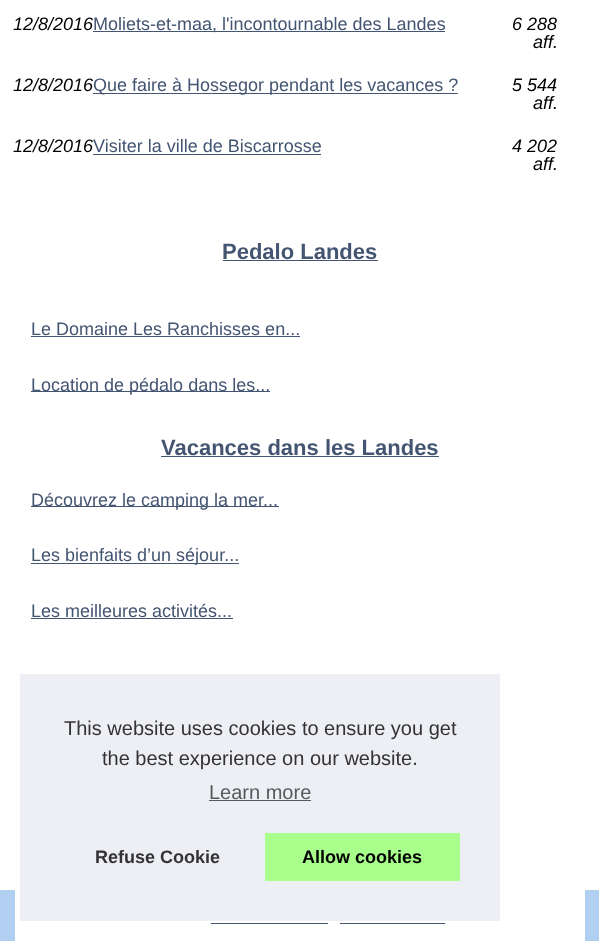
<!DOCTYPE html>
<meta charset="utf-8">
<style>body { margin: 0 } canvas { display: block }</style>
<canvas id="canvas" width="599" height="941"></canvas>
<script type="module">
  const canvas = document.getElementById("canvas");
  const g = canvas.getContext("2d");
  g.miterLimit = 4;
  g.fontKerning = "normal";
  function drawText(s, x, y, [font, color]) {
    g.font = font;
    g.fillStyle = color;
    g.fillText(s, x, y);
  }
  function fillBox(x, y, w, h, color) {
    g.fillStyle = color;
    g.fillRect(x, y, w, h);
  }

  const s1 = ["italic 18px Liberation Sans", "#000000"];
  const s2 = ["18px Liberation Sans", "#445572"];
  const s3 = ["bold 22px Liberation Sans", "#445572"];
  const s4 = ["20px Liberation Sans", "#333333"];
  const s5 = ["20px Liberation Sans", "#58595A"];
  const s6 = ["bold 18px Liberation Sans", "#333333"];
  const s7 = ["bold 18px Liberation Sans", "#000000"];

  fillBox(0, 0, 599, 941, "#B1CFF1");
  fillBox(0, 0, 599, 890, "#FFFFFF");
  drawText("12/8/2016", 13, 30, s1);
  fillBox(93, 31, 352, 1, "#445572");
  drawText("Moliets-et-maa, l'incontournable des Landes", 93, 30, s2);
  drawText("6 288", 512, 30, s1);
  drawText("aff.", 533, 48, s1);
  drawText("12/8/2016", 13, 91, s1);
  fillBox(93, 93, 365, 1, "#445572");
  drawText("Que faire à Hossegor pendant les vacances ?", 93, 91, s2);
  drawText("5 544", 512, 91, s1);
  drawText("aff.", 533, 109, s1);
  drawText("12/8/2016", 13, 152, s1);
  drawText("Visiter la ville de Biscarrosse", 93, 152, s2);
  fillBox(93, 154, 228, 1, "#445572");
  drawText("4 202", 512, 152, s1);
  drawText("aff.", 533, 170, s1);
  drawText("Pedalo Landes", 222, 259, s3);
  fillBox(223, 260, 155, 1, "#445572");
  drawText("Le Domaine Les Ranchisses en...", 31, 335, s2);
  fillBox(31, 336, 269, 1, "#445572");
  fillBox(31, 391, 239, 1, "#445572");
  drawText("Location de pédalo dans les...", 31, 391, s2);
  drawText("Vacances dans les Landes", 161, 455, s3);
  fillBox(161, 456, 278, 1, "#445572");
  fillBox(31, 506, 248, 1, "#445572");
  drawText("Découvrez le camping la mer...", 31, 506, s2);
  fillBox(31, 563, 208, 1, "#445572");
  drawText("Les bienfaits d’un séjour...", 31, 561, s2);
  drawText("Les meilleures activités...", 31, 617, s2);
  fillBox(31, 618, 202, 1, "#445572");
  fillBox(15, 890, 570, 51, "#FFFFFF");
  fillBox(20, 674, 480, 247, "#EDEFF5");
  drawText("This website uses cookies to ensure you get", 64, 735, s4);
  drawText("the best experience on our website.", 102, 765, s4);
  drawText("Learn more", 209, 799, s5);
  fillBox(209, 800, 102, 1, "#58595A");
  drawText("Refuse Cookie", 95, 863, s6);
  fillBox(265, 833, 195, 48, "#A8FF8C");
  drawText("Allow cookies", 302, 863, s7);
  fillBox(211, 923, 117, 1, "#445572");
  fillBox(340, 923, 105, 1, "#445572");
</script>
